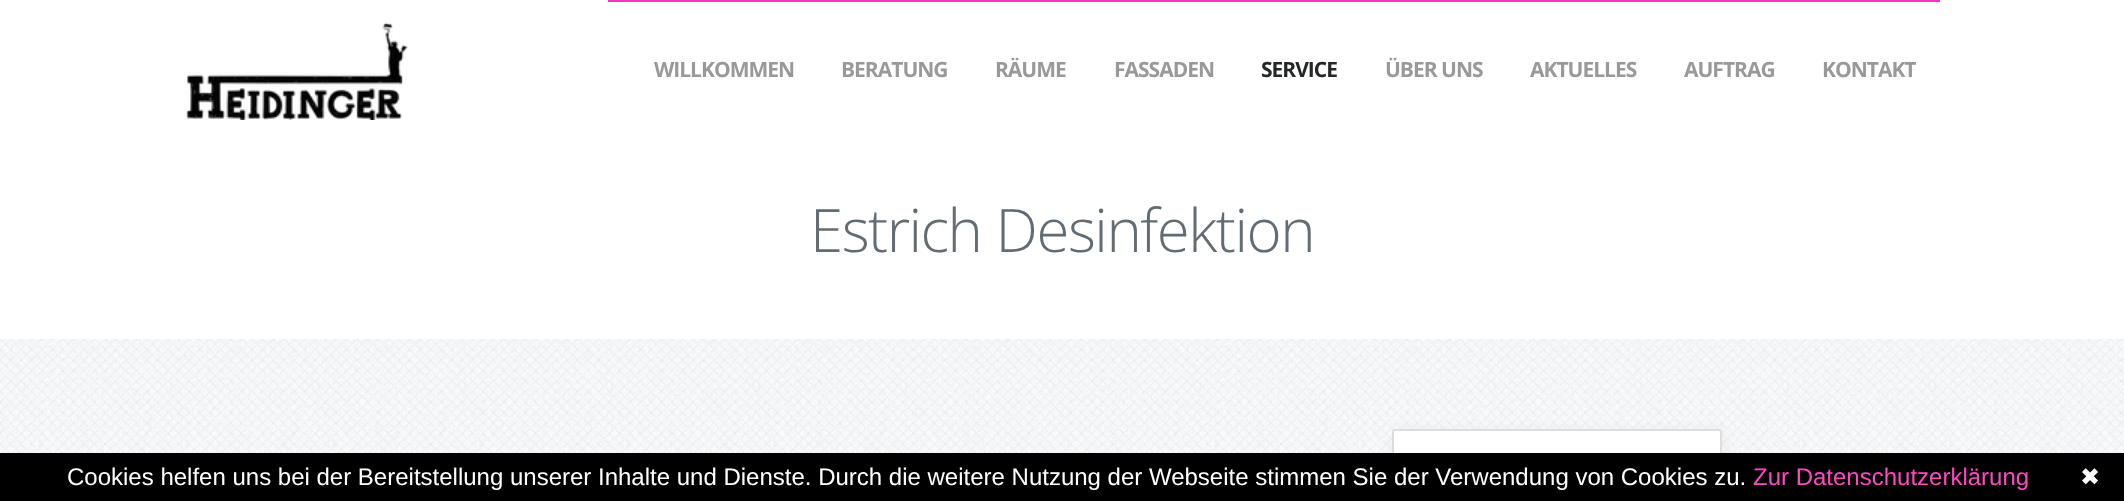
<!DOCTYPE html>
<meta charset="utf-8">
<style>body { margin: 0 } canvas { display: block }</style>
<canvas id="canvas" width="2124" height="501"></canvas>
<script type="module">
  const canvas = document.getElementById("canvas");
  const g = canvas.getContext("2d");
  g.miterLimit = 4;
  g.fontKerning = "normal";
  function drawText(s, x, y, [font, color]) {
    g.font = font;
    g.fillStyle = color;
    g.fillText(s, x, y);
  }
  function fillBox(x, y, w, h, color) {
    g.fillStyle = color;
    g.fillRect(x, y, w, h);
  }
  async function drawPicture(src, x, y, w, h) {
    const img = new Image();
    img.src = src;
    await img.decode();
    g.drawImage(img, x, y, w, h);
  }

  const s1 = ["bold 21px Open Sans", "#999999"];
  const s2 = ["bold 21px Open Sans", "#242627"];
  const s3 = ["300 60px Open Sans", "#626C72"];
  const s4 = ["24px Liberation Sans", "#FFFFFF"];
  const s5 = ["24px Liberation Sans", "#FE4AC2"];
  const s6 = ["24px DejaVu Sans", "#FFFFFF"];

  fillBox(0, 0, 2124, 501, "#FFFFFF");
  await drawPicture("pic1.png", 186, 22, 222, 98);
  fillBox(608, 0, 1332, 2, "#F437BA");
  g.letterSpacing = "-1px";
  drawText("WILLKOMMEN", 654, 77, s1);
  drawText("BERATUNG", 841, 77, s1);
  drawText("RÄUME", 995, 77, s1);
  drawText("FASSADEN", 1114, 77, s1);
  drawText("SERVICE", 1261, 77, s2);
  drawText("ÜBER UNS", 1385, 77, s1);
  drawText("AKTUELLES", 1530, 77, s1);
  drawText("AUFTRAG", 1684, 77, s1);
  drawText("KONTAKT", 1822, 77, s1);
  g.letterSpacing = "-1.5px";
  drawText("Estrich Desinfektion", 810, 252, s3);
  await drawPicture("pic2.png", 0, 339, 2124, 114);
  g.fillStyle = "rgba(0, 0, 0, 0.05)";
  g.filter = "blur(6px)";
  g.beginPath();
  g.roundRect(1394, 431, 330, 55, 3);
  g.fill();
  g.filter = "none";
  g.fillStyle = "#FFFFFF";
  g.beginPath();
  g.roundRect(1393, 430, 328, 54, 2);
  g.fill();
  g.strokeStyle = "#DDDDDD";
  g.lineWidth = 2;
  g.stroke();
  fillBox(0, 453, 2124, 48, "#000000");
  g.letterSpacing = "0px";
  drawText("Cookies helfen uns bei der Bereitstellung unserer Inhalte und Dienste. Durch die weitere Nutzung der Webseite stimmen Sie der Verwendung von Cookies zu.", 67, 485, s4);
  drawText("Zur Datenschutzerklärung", 1753, 485, s5);
  drawText("✖", 2080, 485, s6);
</script>
